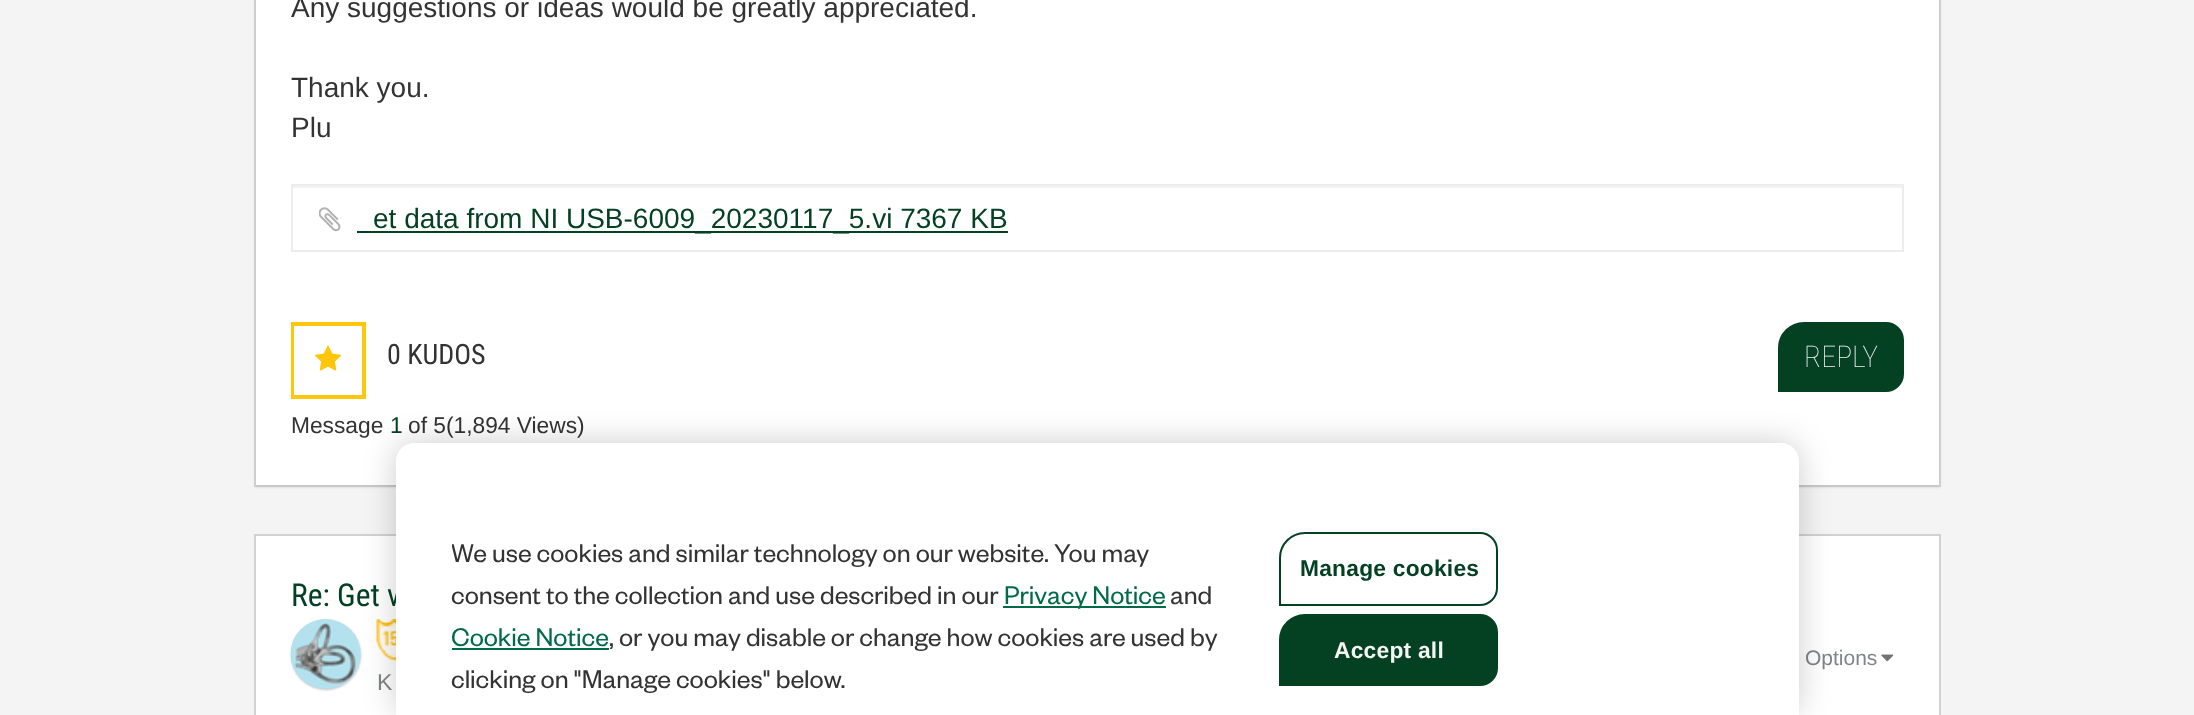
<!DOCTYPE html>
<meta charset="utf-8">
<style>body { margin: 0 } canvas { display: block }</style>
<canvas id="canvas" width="2194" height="715"></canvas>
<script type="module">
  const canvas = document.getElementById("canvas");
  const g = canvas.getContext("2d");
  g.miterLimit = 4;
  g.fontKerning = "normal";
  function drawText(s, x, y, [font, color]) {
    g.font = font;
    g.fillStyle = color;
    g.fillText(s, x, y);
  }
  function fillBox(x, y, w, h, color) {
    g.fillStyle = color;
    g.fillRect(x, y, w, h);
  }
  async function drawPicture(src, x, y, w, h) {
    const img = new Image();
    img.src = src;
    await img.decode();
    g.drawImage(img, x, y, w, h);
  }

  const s1 = ["28px Liberation Sans", "#333333"];
  const s2 = ["28px Liberation Sans", "#044123"];
  const s3 = ["28px Roboto Condensed", "#333333"];
  const s4 = ["22.75px Liberation Sans", "#333333"];
  const s5 = ["22.75px Liberation Sans", "#044123"];
  const s6 = ["100 30px Roboto Condensed", "#F4F4F4"];
  const s7 = ["31.5px Roboto Condensed", "#044123"];
  const s8 = ["21px Liberation Sans", "#808587"];
  const s9 = ["23px Liberation Sans", "#808587"];
  const s10 = ["28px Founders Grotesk", "#333333"];
  const s11 = ["28px Founders Grotesk", "#006B46"];
  const s12 = ["bold 22.75px Liberation Sans", "#044123"];
  const s13 = ["bold 22.75px Liberation Sans", "#F4F4F4"];

  fillBox(0, 0, 2194, 715, "#F4F4F4");
  g.fillStyle = "rgba(0, 0, 0, 0.05)";
  g.filter = "blur(1px)";
  g.beginPath();
  g.rect(254, -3, 1687, 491);
  g.fill();
  g.filter = "none";
  g.strokeStyle = "#D1D1D1";
  g.lineWidth = 2;
  g.strokeRect(255, -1, 1685, 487);
  g.filter = "blur(1px)";
  g.beginPath();
  g.rect(256, -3, 1683, 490);
  g.fill();
  g.filter = "none";
  fillBox(256, 0, 1683, 485, "#FFFFFF");
  drawText("Any suggestions or ideas would be greatly appreciated.", 291, 17, s1);
  drawText("Thank you.", 291, 97, s1);
  drawText("Plu", 291, 137, s1);
  fillBox(292, 186, 1610, 2, "#F2F2F2");
  g.strokeStyle = "#EDEDED";
  g.strokeRect(292, 185, 1611, 66);
  await drawPicture("pic1.png", 319, 207, 22, 25);
  fillBox(357, 231, 651, 2, "#044123");
  drawText("et data from NI USB-6009_20230117_5.vi 7367 KB", 373, 228, s2);
  g.strokeStyle = "#FFC60B";
  g.strokeRect(292, 323, 73, 75);
  g.strokeRect(293, 325, 70, 71);
  await drawPicture("pic2.png", 315, 345, 26, 26);
  drawText("0 KUDOS", 387, 364, s3);
  drawText("Message", 291, 433, s4);
  drawText("1", 390, 433, s5);
  drawText("of 5(1,894 Views)", 408, 433, s4);
  g.fillStyle = "#044123";
  g.beginPath();
  g.roundRect(1780, 324, 122, 66, [24, 16, 16, 0]);
  g.fill();
  g.strokeStyle = "#044123";
  g.lineWidth = 4;
  g.stroke();
  drawText("REPLY", 1804, 367, s6);
  g.fillStyle = "#FFFFFF";
  g.beginPath();
  g.rect(255, 535, 1685, 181);
  g.fill();
  g.strokeStyle = "#D1D1D1";
  g.lineWidth = 2;
  g.stroke();
  drawText("Re: Get v", 291, 606, s7);
  drawText("Options", 1805, 665, s8);
  await drawPicture("pic3.png", 1881, 654, 13, 8);
  g.fillStyle = "#C4C4C4";
  g.filter = "blur(1px)";
  g.beginPath();
  g.roundRect(291, 620, 70, 70, 35);
  g.fill();
  g.filter = "none";
  await drawPicture("pic4.png", 290, 619, 71, 70);
  await drawPicture("pic5.png", 376, 619, 20, 42);
  drawText("K", 377, 690, s9);
  g.fillStyle = "rgba(0, 0, 0, 0.2)";
  g.filter = "blur(16px)";
  g.beginPath();
  g.roundRect(396, 443, 1403, 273, 18);
  g.fill();
  g.filter = "none";
  g.fillStyle = "#FFFFFF";
  g.beginPath();
  g.moveTo(414, 443);
  g.lineTo(1781, 443);
  g.bezierCurveTo(1791, 443, 1799, 451, 1799, 461);
  g.lineTo(1799, 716);
  g.lineTo(396, 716);
  g.lineTo(396, 461);
  g.bezierCurveTo(396, 451, 404, 443, 414, 443);
  g.closePath();
  g.fill();
  g.save();
  g.beginPath();
  g.rect(452, 530, 785, 168);
  g.clip();
  drawText("We use cookies and similar technology on our website. You may", 451, 562, s10);
  g.restore();
  drawText("consent to the collection and use described in our", 451, 604, s10);
  fillBox(1003, 606, 163, 2, "#006B46");
  drawText("Privacy Notice", 1004, 604, s11);
  drawText("and", 1170, 604, s10);
  drawText("Cookie Notice", 451, 646, s11);
  fillBox(452, 648, 157, 2, "#006B46");
  drawText(", or you may disable or change how cookies are used by", 609, 646, s10);
  drawText("clicking on \"Manage cookies\" below.", 451, 688, s10);
  g.beginPath();
  g.roundRect(1280, 533, 217, 72, [25, 17, 17, 0]);
  g.strokeStyle = "#044123";
  g.stroke();
  g.letterSpacing = "0.25px";
  drawText("Manage cookies", 1300, 576, s12);
  g.beginPath();
  g.roundRect(1280, 615, 217, 70, [25, 17, 17, 0]);
  g.fill();
  g.stroke();
  drawText("Accept all", 1334, 658, s13);
</script>
